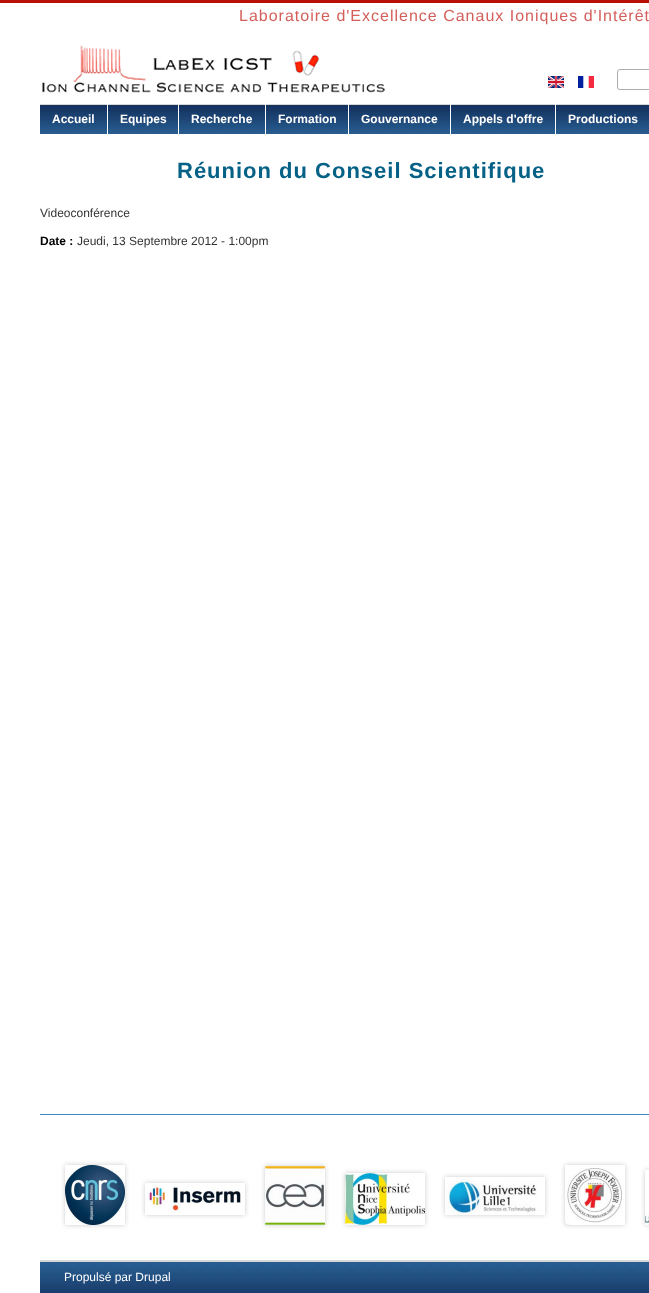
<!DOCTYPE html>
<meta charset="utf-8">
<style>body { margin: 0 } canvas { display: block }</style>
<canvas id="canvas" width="649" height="1293"></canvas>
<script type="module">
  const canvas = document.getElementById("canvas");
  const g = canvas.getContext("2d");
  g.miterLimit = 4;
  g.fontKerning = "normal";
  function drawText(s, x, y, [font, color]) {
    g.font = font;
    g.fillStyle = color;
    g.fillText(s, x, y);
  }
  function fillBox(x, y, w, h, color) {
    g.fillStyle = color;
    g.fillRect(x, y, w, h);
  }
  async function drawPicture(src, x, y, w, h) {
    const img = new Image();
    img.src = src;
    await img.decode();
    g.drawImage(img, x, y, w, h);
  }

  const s1 = ["16px Liberation Sans", "#D45F5A"];
  const s2 = ["bold 12px Liberation Sans", "#FFFFFF"];
  const s3 = ["bold 22px Liberation Sans", "#056186"];
  const s4 = ["12px Liberation Sans", "#333333"];
  const s5 = ["bold 12px Liberation Sans", "#000000"];
  const s6 = ["12px Liberation Sans", "#FFFFFF"];

  fillBox(0, 0, 649, 1293, "#FFFFFF");
  fillBox(0, 0, 649, 3, "#B81007");
  g.letterSpacing = "1px";
  drawText("Laboratoire d'Excellence Canaux Ioniques d'Intérêt", 239, 21, s1);
  await drawPicture("pic1.png", 42, 45, 343, 48);
  await drawPicture("pic2.png", 548, 76, 16, 12);
  await drawPicture("pic3.png", 578, 76, 16, 12);
  g.beginPath();
  g.roundRect(617.5, 69.5, 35, 20, 2.5);
  g.strokeStyle = "#ACACAC";
  g.stroke();
  await drawPicture("pic4.png", 40, 104, 609, 30);
  fillBox(107, 104, 1, 30, "#FFFFFF");
  g.letterSpacing = "0px";
  drawText("Accueil", 52, 123, s2);
  fillBox(178, 104, 1, 30, "#FFFFFF");
  drawText("Equipes", 120, 123, s2);
  fillBox(265, 104, 1, 30, "#FFFFFF");
  drawText("Recherche", 191, 123, s2);
  fillBox(348, 104, 1, 30, "#FFFFFF");
  drawText("Formation", 278, 123, s2);
  fillBox(450, 104, 1, 30, "#FFFFFF");
  drawText("Gouvernance", 361, 123, s2);
  fillBox(555, 104, 1, 30, "#FFFFFF");
  drawText("Appels d'offre", 463, 123, s2);
  drawText("Productions", 568, 123, s2);
  fillBox(40, 1114, 609, 1, "#3F89CB");
  g.letterSpacing = "1px";
  drawText("Réunion du Conseil Scientifique", 177, 178, s3);
  g.letterSpacing = "0px";
  drawText("Videoconférence", 40, 217, s4);
  drawText("Date :", 40, 245, s5);
  drawText("Jeudi, 13 Septembre 2012 - 1:00pm", 77, 245, s4);
  g.fillStyle = "#CCCCCC";
  g.filter = "blur(2.5px)";
  g.beginPath();
  g.rect(65, 1165, 60, 60);
  g.fill();
  g.filter = "none";
  g.filter = "blur(2.5px)";
  g.beginPath();
  g.rect(265, 1166, 60, 59);
  g.fill();
  g.filter = "none";
  g.filter = "blur(2.5px)";
  g.beginPath();
  g.rect(345, 1173, 80, 52);
  g.fill();
  g.filter = "none";
  g.save();
  g.beginPath();
  g.moveTo(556, 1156);
  g.lineTo(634, 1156);
  g.lineTo(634, 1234);
  g.lineTo(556, 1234);
  g.closePath();
  g.moveTo(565, 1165);
  g.lineTo(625, 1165);
  g.lineTo(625, 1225);
  g.lineTo(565, 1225);
  g.closePath();
  g.clip("evenodd");
  g.filter = "blur(2.5px)";
  g.beginPath();
  g.rect(565, 1165, 60, 60);
  g.fill();
  g.filter = "none";
  g.restore();
  g.save();
  g.beginPath();
  g.moveTo(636, 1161);
  g.lineTo(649, 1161);
  g.lineTo(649, 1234);
  g.lineTo(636, 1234);
  g.closePath();
  g.moveTo(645, 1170);
  g.lineTo(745, 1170);
  g.lineTo(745, 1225);
  g.lineTo(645, 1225);
  g.closePath();
  g.clip("evenodd");
  g.filter = "blur(2.5px)";
  g.beginPath();
  g.rect(645, 1170, 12, 55);
  g.fill();
  g.filter = "none";
  g.restore();
  await drawPicture("pic5.png", 65, 1165, 60, 60);
  g.save();
  g.beginPath();
  g.moveTo(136, 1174);
  g.lineTo(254, 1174);
  g.lineTo(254, 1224);
  g.lineTo(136, 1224);
  g.closePath();
  g.moveTo(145, 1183);
  g.lineTo(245, 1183);
  g.lineTo(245, 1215);
  g.lineTo(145, 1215);
  g.closePath();
  g.clip("evenodd");
  g.filter = "blur(2.5px)";
  g.beginPath();
  g.rect(145, 1183, 100, 32);
  g.fill();
  g.filter = "none";
  g.restore();
  await drawPicture("pic6.png", 265, 1166, 60, 59);
  await drawPicture("pic7.png", 345, 1173, 80, 52);
  g.save();
  g.beginPath();
  g.moveTo(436, 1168);
  g.lineTo(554, 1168);
  g.lineTo(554, 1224);
  g.lineTo(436, 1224);
  g.closePath();
  g.moveTo(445, 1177);
  g.lineTo(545, 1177);
  g.lineTo(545, 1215);
  g.lineTo(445, 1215);
  g.closePath();
  g.clip("evenodd");
  g.filter = "blur(2.5px)";
  g.beginPath();
  g.rect(445, 1177, 100, 38);
  g.fill();
  g.filter = "none";
  g.restore();
  await drawPicture("pic8.png", 565, 1168, 57, 57);
  await drawPicture("pic9.png", 145, 1183, 96, 30);
  await drawPicture("pic10.png", 445, 1177, 92, 38);
  await drawPicture("pic11.png", 645, 1212, 4, 13);
  await drawPicture("pic12.png", 40, 1260, 609, 33);
  drawText("Propulsé par Drupal", 64, 1281, s6);
</script>
